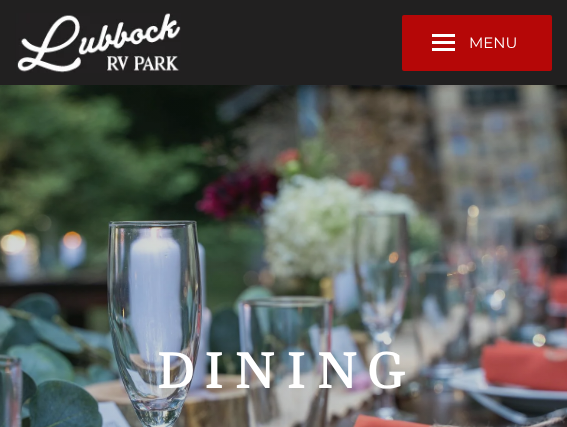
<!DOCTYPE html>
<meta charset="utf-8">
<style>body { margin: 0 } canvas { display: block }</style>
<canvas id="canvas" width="567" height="427"></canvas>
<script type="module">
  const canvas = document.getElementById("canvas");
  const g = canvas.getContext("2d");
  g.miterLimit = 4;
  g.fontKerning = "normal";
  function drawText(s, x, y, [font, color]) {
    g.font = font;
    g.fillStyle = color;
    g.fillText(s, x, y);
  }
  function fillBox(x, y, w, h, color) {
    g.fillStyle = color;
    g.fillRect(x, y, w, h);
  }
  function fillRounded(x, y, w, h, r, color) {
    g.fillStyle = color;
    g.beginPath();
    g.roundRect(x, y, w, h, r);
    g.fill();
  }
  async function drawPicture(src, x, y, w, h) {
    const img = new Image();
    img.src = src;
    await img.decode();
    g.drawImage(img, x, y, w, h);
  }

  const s1 = ["15px Montserrat", "#FFFFFF"];
  const s2 = ["bold 46px Ledger", "#FFFFFF"];

  fillBox(0, 0, 567, 427, "#212020");
  await drawPicture("pic1.png", 15, 13, 166, 60);
  fillRounded(402, 15, 150, 56, 2, "#B50707");
  fillBox(432, 34, 23, 3, "#FFFFFF");
  fillBox(432, 41, 23, 3, "#FFFFFF");
  fillBox(432, 48, 23, 3, "#FFFFFF");
  drawText("MENU", 469, 48, s1);
  await drawPicture("pic2.png", 0, 85, 567, 342);
  g.letterSpacing = "8px";
  drawText("DINING", 155, 388, s2);
</script>
